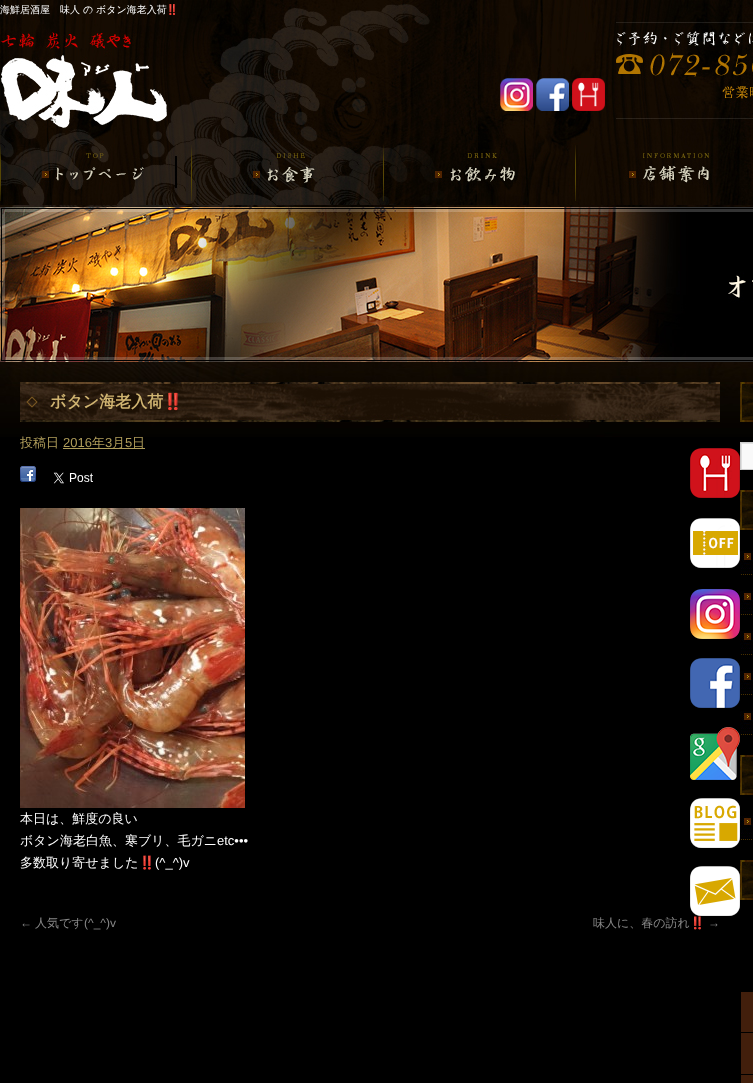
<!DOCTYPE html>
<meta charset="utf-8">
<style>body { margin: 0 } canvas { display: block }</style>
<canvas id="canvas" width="753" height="1083"></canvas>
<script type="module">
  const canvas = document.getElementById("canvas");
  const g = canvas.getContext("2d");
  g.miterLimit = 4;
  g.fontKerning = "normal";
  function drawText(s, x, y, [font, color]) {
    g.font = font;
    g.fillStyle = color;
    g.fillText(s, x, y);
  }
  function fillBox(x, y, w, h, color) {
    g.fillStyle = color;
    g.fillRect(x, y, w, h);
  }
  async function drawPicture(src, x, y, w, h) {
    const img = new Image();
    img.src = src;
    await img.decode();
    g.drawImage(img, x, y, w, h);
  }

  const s1 = ["500 10px WenQuanYi Zen Hei", "#FFFFFF"];
  const s2 = ["10px Noto Color Emoji", "#FFFFFF"];
  const s3 = ["bold 16px WenQuanYi Zen Hei", "#D0B471"];
  const s4 = ["bold 16px Noto Color Emoji", "#D0B471"];
  const s5 = ["500 13px WenQuanYi Zen Hei", "#B09D5A"];
  const s6 = ["13px Liberation Sans", "#B09D5A"];
  const s7 = ["500 13px WenQuanYi Zen Hei", "#FFFFFF"];
  const s8 = ["13px Liberation Sans", "#FFFFFF"];
  const s9 = ["13px Noto Color Emoji", "#FFFFFF"];
  const s10 = ["12px Liberation Sans", "#888888"];
  const s11 = ["500 12px WenQuanYi Zen Hei", "#888888"];
  const s12 = ["12px Noto Color Emoji", "#888888"];

  fillBox(0, 0, 753, 1083, "#000000");
  await drawPicture("pic1.png", 0, 145, 753, 292);
  await drawPicture("pic2.png", 0, 0, 753, 145);
  drawText("海鮮居酒屋　味人 の", 0, 13, s1);
  drawText("ボタン海老入荷", 96, 13, s1);
  drawText("‼️", 166, 13, s2);
  await drawPicture("pic3.png", 500, 78, 33, 33);
  await drawPicture("pic4.png", 536, 78, 33, 33);
  await drawPicture("pic5.png", 572, 78, 33, 33);
  await drawPicture("pic6.png", 0, 145, 192, 60);
  await drawPicture("pic7.png", 192, 145, 192, 60);
  await drawPicture("pic8.png", 384, 145, 192, 60);
  await drawPicture("pic9.png", 578, 145, 175, 60);
  await drawPicture("pic10.png", 0, 207, 753, 155);
  await drawPicture("pic11.png", 20, 382, 700, 40);
  drawText("ボタン海老入荷", 50, 407, s3);
  drawText("‼️", 163, 407, s4);
  drawText("投稿日", 20, 447, s5);
  drawText("2016", 63, 447, s6);
  fillBox(63, 448, 82, 1, "#B09D5A");
  drawText("年", 92, 447, s5);
  drawText("3", 105, 447, s6);
  drawText("月", 112, 447, s5);
  drawText("5", 125, 447, s6);
  drawText("日", 132, 447, s5);
  await drawPicture("pic12.png", 20, 466, 16, 16);
  await drawPicture("pic13.png", 53, 472, 40, 12);
  await drawPicture("pic14.png", 20, 508, 225, 300);
  drawText("本日は、鮮度の良い", 20, 823, s7);
  drawText("ボタン海老白魚、寒ブリ、毛ガニ", 20, 845, s7);
  drawText("etc•••", 217, 845, s8);
  drawText("多数取り寄せました", 20, 867, s7);
  drawText("‼️", 139, 867, s9);
  drawText("(^_^)v", 155, 867, s8);
  drawText("←", 20, 927, s10);
  drawText("人気です", 35, 927, s11);
  drawText("(^_^)v", 84, 927, s10);
  drawText("味人に、春の訪れ", 593, 927, s11);
  drawText("‼️", 690, 927, s12);
  drawText("→", 708, 927, s10);
  await drawPicture("pic15.png", 740, 382, 13, 40);
  fillBox(742, 444, 11, 25, "#F9F9F9");
  g.save();
  g.beginPath();
  g.rect(741, 443, 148, 26);
  g.clip();
  g.fillStyle = "#E0E0E0";
  g.beginPath();
  g.moveTo(642, 344);
  g.lineTo(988, 344);
  g.lineTo(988, 568);
  g.lineTo(642, 568);
  g.closePath();
  g.moveTo(742, 444);
  g.lineTo(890, 444);
  g.lineTo(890, 470);
  g.lineTo(742, 470);
  g.closePath();
  g.fill("evenodd");
  g.restore();
  g.strokeStyle = "#CCCCCC";
  g.strokeRect(740.5, 442.5, 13, 27);
  await drawPicture("pic15.png", 740, 490, 13, 40);
  await drawPicture("pic16.png", 740, 551, 13, 24);
  await drawPicture("pic16.png", 740, 591, 13, 24);
  await drawPicture("pic16.png", 740, 631, 13, 24);
  await drawPicture("pic16.png", 740, 671, 13, 24);
  await drawPicture("pic16.png", 740, 711, 13, 24);
  await drawPicture("pic15.png", 740, 755, 13, 40);
  await drawPicture("pic16.png", 740, 816, 13, 24);
  await drawPicture("pic15.png", 740, 860, 13, 40);
  fillBox(741, 992, 12, 40, "#421F0C");
  fillBox(741, 1033, 12, 41, "#421F0C");
  fillBox(741, 1075, 12, 8, "#421F0C");
  await drawPicture("pic17.png", 690, 448, 50, 50);
  await drawPicture("pic18.png", 690, 518, 50, 50);
  await drawPicture("pic19.png", 690, 589, 50, 50);
  await drawPicture("pic20.png", 690, 658, 50, 50);
  await drawPicture("pic21.png", 690, 727, 50, 53);
  await drawPicture("pic22.png", 690, 798, 50, 50);
  await drawPicture("pic23.png", 690, 866, 50, 50);
</script>
